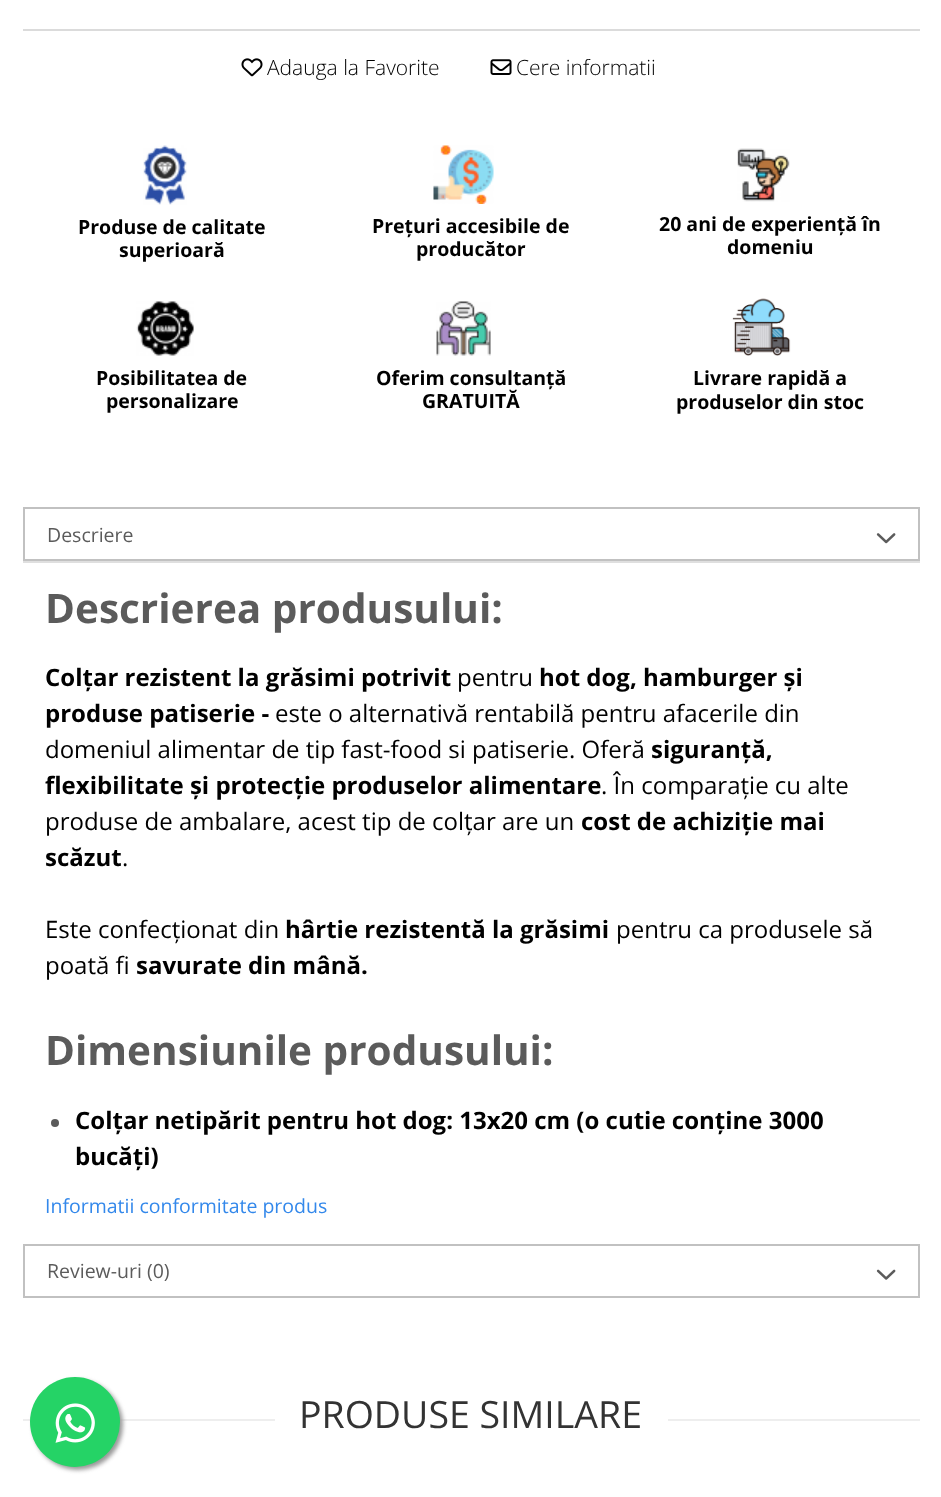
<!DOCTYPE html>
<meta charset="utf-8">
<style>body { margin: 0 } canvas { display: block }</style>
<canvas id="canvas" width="941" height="1497"></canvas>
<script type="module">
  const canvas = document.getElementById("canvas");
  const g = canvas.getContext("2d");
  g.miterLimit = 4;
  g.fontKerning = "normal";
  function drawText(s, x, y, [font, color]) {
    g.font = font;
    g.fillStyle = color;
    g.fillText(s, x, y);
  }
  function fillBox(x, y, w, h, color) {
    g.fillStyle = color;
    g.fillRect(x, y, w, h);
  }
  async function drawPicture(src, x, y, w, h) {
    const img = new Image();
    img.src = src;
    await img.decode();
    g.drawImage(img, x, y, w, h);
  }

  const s1 = ["300 21px Open Sans", "#000000"];
  const s2 = ["bold 19.5px Open Sans", "#000000"];
  const s3 = ["19.5px Open Sans", "#5B5B5B"];
  const s4 = ["bold 40.5px Open Sans", "#5B5B5B"];
  const s5 = ["bold 24px Open Sans", "#000000"];
  const s6 = ["24px Open Sans", "#000000"];
  const s7 = ["19.5px Open Sans", "#3388EB"];
  const s8 = ["37.5px Open Sans", "#333333"];

  fillBox(0, 0, 941, 1497, "#FFFFFF");
  fillBox(23, 29, 897, 2, "#DBDBDB");
  await drawPicture("pic1.png", 241, 58, 22, 19);
  drawText("Adauga la Favorite", 267, 75, s1);
  await drawPicture("pic2.png", 490, 59, 22, 16);
  drawText("Cere informatii", 516, 75, s1);
  await drawPicture("pic3.png", 143, 145, 44, 60);
  drawText("Produse de calitate", 78, 234, s2);
  drawText("superioară", 119, 257, s2);
  await drawPicture("pic4.png", 433, 145, 61, 59);
  drawText("Prețuri accesibile de", 372, 233, s2);
  drawText("producător", 416, 256, s2);
  await drawPicture("pic5.png", 737, 148, 53, 54);
  drawText("20 ani de experiență în", 659, 231, s2);
  drawText("domeniu", 727, 254, s2);
  await drawPicture("pic6.png", 136, 301, 58, 55);
  drawText("Posibilitatea de", 96, 385, s2);
  drawText("personalizare", 106, 408, s2);
  await drawPicture("pic7.png", 436, 301, 55, 55);
  drawText("Oferim consultanță", 376, 385, s2);
  drawText("GRATUITĂ", 422, 408, s2);
  await drawPicture("pic8.png", 732, 298, 59, 58);
  drawText("Livrare rapidă a", 693, 385, s2);
  drawText("produselor din stoc", 676, 409, s2);
  g.strokeStyle = "#C1C1C1";
  g.lineWidth = 2;
  g.strokeRect(24, 508, 895, 52);
  drawText("Descriere", 47, 542, s3);
  await drawPicture("pic9.png", 876, 533, 20, 11);
  fillBox(23, 561, 897, 2, "#DFDFDF");
  drawText("Descrierea produsului:", 45, 623, s4);
  drawText("Colțar rezistent la grăsimi potrivit", 45, 686, s5);
  drawText("pentru", 457, 686, s6);
  drawText("hot dog, hamburger și", 539, 686, s5);
  drawText("produse patiserie -", 45, 722, s5);
  drawText("este o alternativă rentabilă pentru afacerile din", 275, 722, s6);
  drawText("domeniul alimentar de tip fast-food si patiserie. Oferă", 45, 758, s6);
  drawText("siguranță,", 651, 758, s5);
  drawText("flexibilitate și protecție produselor alimentare", 45, 794, s5);
  drawText(". În comparație cu alte", 601, 794, s6);
  drawText("produse de ambalare, acest tip de colțar are un", 45, 830, s6);
  drawText("cost de achiziție mai", 581, 830, s5);
  drawText("scăzut", 45, 866, s5);
  drawText(".", 122, 866, s6);
  drawText("Este confecționat din", 45, 938, s6);
  drawText("hârtie rezistentă la grăsimi", 285, 938, s5);
  drawText("pentru ca produsele să", 616, 938, s6);
  drawText("poată fi", 45, 974, s6);
  drawText("savurate din mână.", 136, 974, s5);
  drawText("Dimensiunile produsului:", 45, 1065, s4);
  g.beginPath();
  g.arc(55, 1123, 4, 0, Math.PI * 2);
  g.fill();
  drawText("Colțar netipărit pentru hot dog: 13x20 cm (o cutie conține 3000", 75, 1129, s5);
  drawText("bucăți)", 75, 1165, s5);
  drawText("Informatii conformitate produs", 45, 1213, s7);
  g.strokeRect(24, 1245, 895, 52);
  drawText("Review-uri (0)", 47, 1278, s3);
  await drawPicture("pic10.png", 876, 1269, 20, 11);
  fillBox(23, 1419, 897, 2, "#EEEEEE");
  fillBox(275, 1419, 393, 2, "#FFFFFF");
  drawText("PRODUSE SIMILARE", 299, 1428, s8);
  g.fillStyle = "#999999";
  g.filter = "blur(2px)";
  g.beginPath();
  g.roundRect(33, 1380, 90, 90, 45);
  g.fill();
  g.filter = "none";
  g.fillStyle = "#25D366";
  g.beginPath();
  g.arc(75, 1422, 45, 0, Math.PI * 2);
  g.fill();
  await drawPicture("pic11.png", 55, 1403, 40, 40);
</script>
